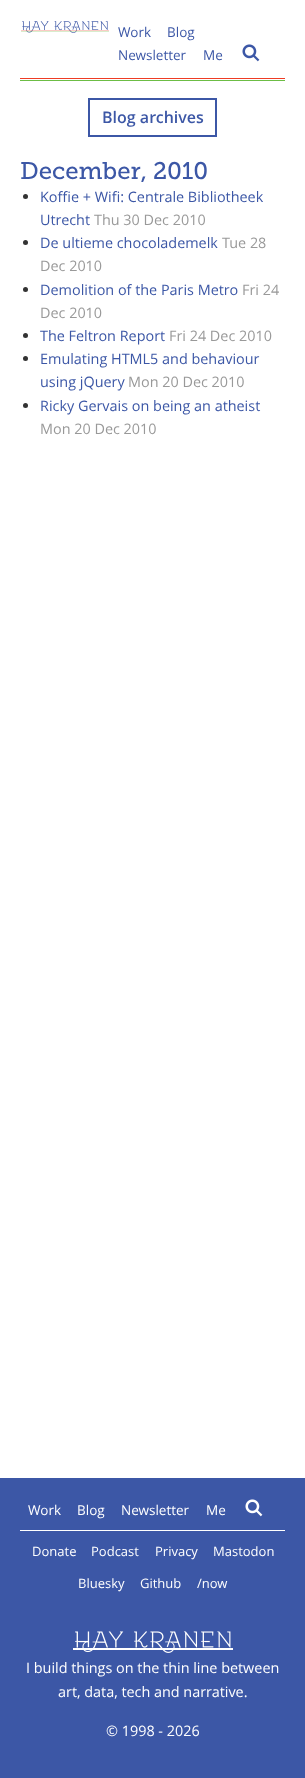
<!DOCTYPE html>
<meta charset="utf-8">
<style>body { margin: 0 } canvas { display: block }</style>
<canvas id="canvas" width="305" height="1778"></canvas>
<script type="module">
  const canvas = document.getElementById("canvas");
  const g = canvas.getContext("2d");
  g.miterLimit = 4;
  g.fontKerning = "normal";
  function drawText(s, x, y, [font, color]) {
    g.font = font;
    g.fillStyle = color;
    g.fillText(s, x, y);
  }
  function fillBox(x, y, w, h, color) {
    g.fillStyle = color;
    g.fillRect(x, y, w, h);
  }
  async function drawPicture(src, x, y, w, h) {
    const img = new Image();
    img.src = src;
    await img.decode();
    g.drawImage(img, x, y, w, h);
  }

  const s1 = ["13.5px Open Sans", "#3C57A6"];
  const s2 = ["600 16px Open Sans", "#3C57A6"];
  const s3 = ["24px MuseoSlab", "#3C57A6"];
  const s4 = ["14.4px Open Sans", "#3C57A6"];
  const s5 = ["14.4px Open Sans", "#999999"];
  const s6 = ["13.5px Open Sans", "#FFFFFF"];
  const s7 = ["13px Open Sans", "#FFFFFF"];
  const s8 = ["14.4px Open Sans", "#FFFFFF"];

  fillBox(0, 0, 305, 1778, "#FFFFFF");
  await drawPicture("pic1.png", 21, 21, 88, 12);
  drawText("Work", 118, 37, s1);
  drawText("Blog", 167, 37, s1);
  drawText("Newsletter", 118, 60, s1);
  drawText("Me", 203, 60, s1);
  await drawPicture("pic2.png", 242, 44, 18, 18);
  fillBox(20, 78, 265, 1, "#EE3C24");
  fillBox(20, 80, 265, 1, "#6CBD45");
  g.strokeStyle = "#3C57A6";
  g.lineWidth = 2;
  g.strokeRect(89, 99, 127, 37);
  drawText("Blog archives", 102, 123, s2);
  drawText("December, 2010", 20, 179, s3);
  g.fillStyle = "#333333";
  g.beginPath();
  g.arc(25.5, 196.5, 2.5, 0, Math.PI * 2);
  g.fill();
  drawText("Koffie + Wifi: Centrale Bibliotheek", 40, 202, s4);
  drawText("Utrecht", 40, 225, s4);
  drawText("Thu 30 Dec 2010", 94, 225, s5);
  g.fillStyle = "#333333";
  g.beginPath();
  g.arc(25.5, 242.5, 2.5, 0, Math.PI * 2);
  g.fill();
  drawText("De ultieme chocolademelk", 40, 248, s4);
  drawText("Tue 28", 222, 248, s5);
  drawText("Dec 2010", 40, 271, s5);
  g.fillStyle = "#333333";
  g.beginPath();
  g.arc(25.5, 289.5, 2.5, 0, Math.PI * 2);
  g.fill();
  drawText("Demolition of the Paris Metro", 40, 295, s4);
  drawText("Fri 24", 242, 295, s5);
  drawText("Dec 2010", 40, 318, s5);
  g.fillStyle = "#333333";
  g.beginPath();
  g.arc(25.5, 335.5, 2.5, 0, Math.PI * 2);
  g.fill();
  drawText("The Feltron Report", 40, 341, s4);
  drawText("Fri 24 Dec 2010", 169, 341, s5);
  g.fillStyle = "#333333";
  g.beginPath();
  g.arc(25.5, 358.5, 2.5, 0, Math.PI * 2);
  g.fill();
  drawText("Emulating HTML5 and behaviour", 40, 364, s4);
  drawText("using jQuery", 40, 387, s4);
  drawText("Mon 20 Dec 2010", 128, 387, s5);
  g.fillStyle = "#333333";
  g.beginPath();
  g.arc(25.5, 405.5, 2.5, 0, Math.PI * 2);
  g.fill();
  drawText("Ricky Gervais on being an atheist", 40, 411, s4);
  drawText("Mon 20 Dec 2010", 40, 434, s5);
  fillBox(0, 1478, 305, 300, "#3C57A6");
  drawText("Work", 28, 1515, s6);
  drawText("Blog", 77, 1515, s6);
  drawText("Newsletter", 121, 1515, s6);
  drawText("Me", 206, 1515, s6);
  await drawPicture("pic3.png", 245, 1499, 18, 18);
  fillBox(20, 1530, 265, 1, "#FFFFFF");
  drawText("Donate", 32, 1556, s7);
  drawText("Podcast", 91, 1556, s7);
  drawText("Privacy", 155, 1556, s7);
  drawText("Mastodon", 213, 1556, s7);
  drawText("Bluesky", 78, 1588, s7);
  drawText("Github", 140, 1588, s7);
  drawText("/now", 197, 1588, s7);
  await drawPicture("pic4.png", 73, 1631, 160, 22);
  drawText("I build things on the thin line between", 26, 1673, s8);
  drawText("art, data, tech and narrative.", 58, 1697, s8);
  drawText("© 1998 - 2026", 106, 1736, s8);
</script>
